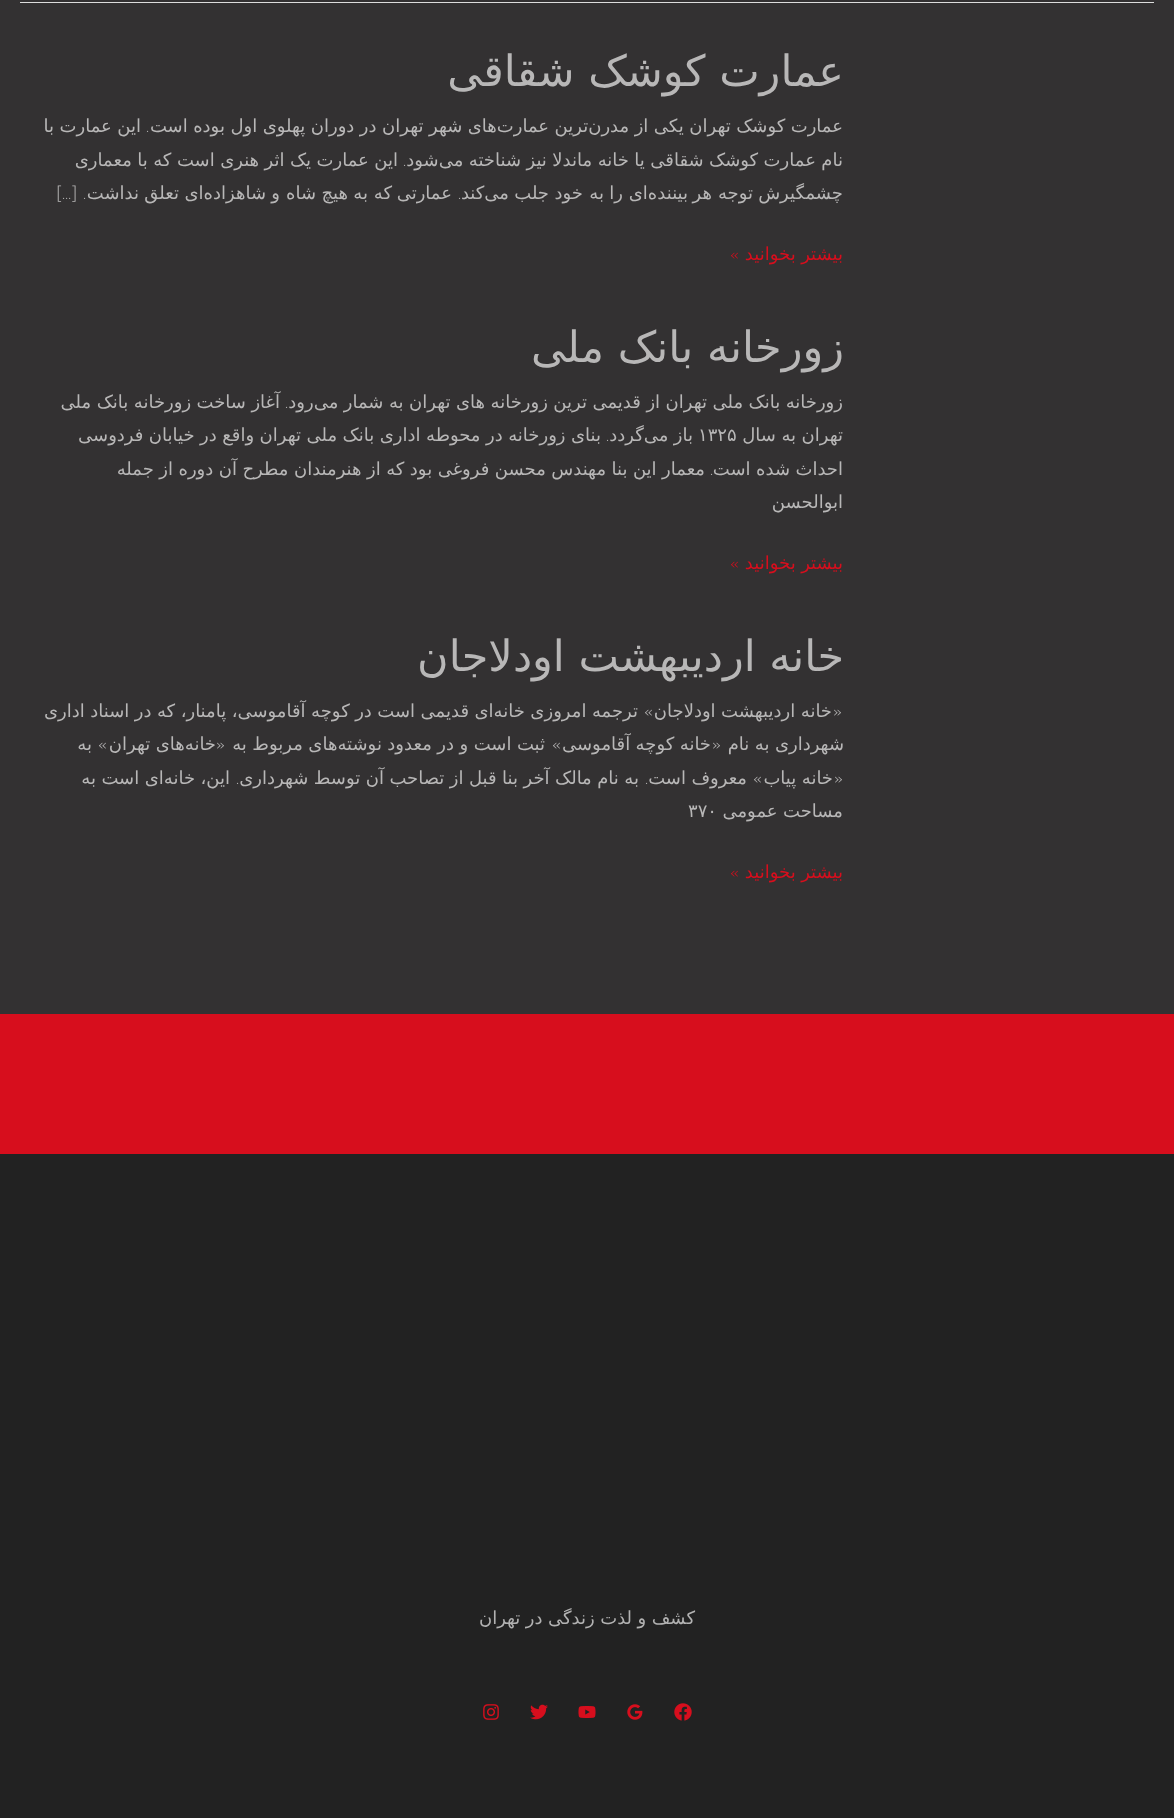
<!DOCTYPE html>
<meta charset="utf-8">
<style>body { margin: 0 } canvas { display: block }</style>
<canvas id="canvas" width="1174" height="1818"></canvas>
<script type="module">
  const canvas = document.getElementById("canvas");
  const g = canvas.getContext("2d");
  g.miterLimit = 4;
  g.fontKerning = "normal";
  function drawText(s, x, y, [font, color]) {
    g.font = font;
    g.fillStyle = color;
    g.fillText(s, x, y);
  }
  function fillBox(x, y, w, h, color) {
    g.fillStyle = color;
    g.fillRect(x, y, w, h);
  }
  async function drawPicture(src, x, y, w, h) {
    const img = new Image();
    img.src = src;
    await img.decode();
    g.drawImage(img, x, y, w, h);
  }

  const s1 = ["43px DejaVu Sans", "#B8B7B7"];
  const s2 = ["18px DejaVu Sans", "#B8B7B7"];
  const s3 = ["100 18px Josefin Sans", "#B8B7B7"];
  const s4 = ["18px DejaVu Sans", "#D70E1D"];
  const s5 = ["100 18px Josefin Sans", "#D70E1D"];
  const s6 = ["18px DejaVu Sans", "#B2B2B2"];

  fillBox(0, 0, 1174, 1818, "#333132");
  fillBox(20, 2, 1134, 1, "#DDDDDD");
  g.direction = "rtl";
  drawText("عمارت کوشک شقاقی", 844, 86, s1);
  g.wordSpacing = "-0.25px";
  drawText("عمارت کوشک تهران یکی از مدرن‌ترین عمارت‌های شهر تهران در دوران پهلوی اول بوده است", 843, 132, s2);
  g.wordSpacing = "0px";
  drawText(".", 149, 132, s3);
  g.wordSpacing = "-0.25px";
  drawText("این عمارت با", 141, 132, s2);
  drawText("نام عمارت کوشک شقاقی یا خانه ماندلا نیز شناخته می‌شود", 843, 166, s2);
  g.wordSpacing = "0px";
  drawText(".", 406, 166, s3);
  g.wordSpacing = "-0.25px";
  drawText("این عمارت یک اثر هنری است که با معماری", 398, 166, s2);
  g.wordSpacing = "0px";
  drawText("چشمگیرش", 843, 199, s2);
  drawText("توجه", 753, 199, s2);
  drawText("هر", 712, 199, s2);
  drawText("بیننده‌ای", 688, 199, s2);
  drawText("را", 623, 199, s2);
  drawText("به", 604, 199, s2);
  drawText("خود", 583, 199, s2);
  drawText("جلب", 549, 199, s2);
  drawText("می‌کند", 509, 199, s2);
  drawText(".", 461, 199, s3);
  drawText("عمارتی", 452, 199, s2);
  drawText("که", 392, 199, s2);
  drawText("به", 368, 199, s2);
  drawText("هیچ", 348, 199, s2);
  drawText("شاه", 316, 199, s2);
  drawText("و", 280, 199, s2);
  drawText("شاهزاده‌ای", 266, 199, s2);
  drawText("تعلق", 179, 199, s2);
  drawText("نداشت", 139, 199, s2);
  drawText(". […]", 86, 199, s3);
  g.wordSpacing = "-0.25px";
  drawText("بیشتر بخوانید", 843, 260, s4);
  g.wordSpacing = "0px";
  drawText("»", 740, 260, s5);
  drawText("زورخانه بانک ملی", 844, 362, s1);
  g.wordSpacing = "-0.25px";
  drawText("زورخانه بانک ملی تهران از قدیمی ترین زورخانه های تهران به شمار می‌رود", 843, 408, s2);
  g.wordSpacing = "0px";
  drawText(".", 288, 408, s3);
  g.wordSpacing = "-0.25px";
  drawText("آغاز ساخت زورخانه بانک ملی", 280, 408, s2);
  drawText("تهران به سال", 843, 441, s2);
  g.wordSpacing = "0px";
  g.direction = "ltr";
  drawText("۱۳۲۵", 698, 441, s2);
  g.wordSpacing = "-0.25px";
  g.direction = "rtl";
  drawText("باز می‌گردد", 693, 441, s2);
  g.wordSpacing = "0px";
  drawText(".", 609, 441, s3);
  g.wordSpacing = "-0.25px";
  drawText("بنای زورخانه در محوطه اداری بانک ملی تهران واقع در خیابان فردوسی", 601, 441, s2);
  drawText("احداث شده است", 843, 475, s2);
  g.wordSpacing = "0px";
  drawText(".", 713, 475, s3);
  g.wordSpacing = "-0.25px";
  drawText("معمار این بنا مهندس محسن فروغی بود که از هنرمندان مطرح آن دوره از جمله", 705, 475, s2);
  g.wordSpacing = "0px";
  drawText("ابوالحسن", 843, 508, s2);
  g.wordSpacing = "-0.25px";
  drawText("بیشتر بخوانید", 843, 569, s4);
  g.wordSpacing = "0px";
  drawText("»", 740, 569, s5);
  drawText("خانه اردیبهشت اودلاجان", 844, 671, s1);
  drawText("«", 843, 717, s3);
  g.wordSpacing = "-0.25px";
  drawText("خانه اردیبهشت اودلاجان", 832, 717, s2);
  g.wordSpacing = "0px";
  drawText("»", 654, 717, s3);
  g.wordSpacing = "-0.25px";
  drawText("ترجمه امروزی خانه‌ای قدیمی است در کوچه آقاموسی، پامنار، که در اسناد اداری", 638, 717, s2);
  drawText("شهرداری به نام", 844, 750, s2);
  g.wordSpacing = "0px";
  drawText("«", 722, 750, s3);
  g.wordSpacing = "-0.25px";
  drawText("خانه کوچه آقاموسی", 711, 750, s2);
  g.wordSpacing = "0px";
  drawText("»", 562, 750, s3);
  g.wordSpacing = "-0.25px";
  drawText("ثبت است و در معدود نوشته‌های مربوط به", 545, 750, s2);
  g.wordSpacing = "0px";
  drawText("«", 226, 750, s3);
  g.wordSpacing = "-0.25px";
  drawText("خانه‌های تهران", 216, 750, s2);
  g.wordSpacing = "0px";
  drawText("»", 108, 750, s3);
  drawText("به", 92, 750, s2);
  drawText("«", 844, 784, s3);
  g.wordSpacing = "-0.25px";
  drawText("خانه پیاب", 833, 784, s2);
  g.wordSpacing = "0px";
  drawText("»", 763, 784, s3);
  g.wordSpacing = "-0.25px";
  drawText("معروف است", 747, 784, s2);
  g.wordSpacing = "0px";
  drawText(".", 648, 784, s3);
  g.wordSpacing = "-0.25px";
  drawText("به نام مالک آخر بنا قبل از تصاحب آن توسط شهرداری", 639, 784, s2);
  g.wordSpacing = "0px";
  drawText(".", 239, 784, s3);
  g.wordSpacing = "-0.25px";
  drawText("این، خانه‌ای است به", 230, 784, s2);
  drawText("مساحت عمومی", 843, 817, s2);
  g.wordSpacing = "0px";
  g.direction = "ltr";
  drawText("۳۷۰", 688, 817, s2);
  g.wordSpacing = "-0.25px";
  g.direction = "rtl";
  drawText("بیشتر بخوانید", 843, 878, s4);
  g.wordSpacing = "0px";
  drawText("»", 740, 878, s5);
  fillBox(0, 1154, 1174, 664, "#222222");
  fillBox(0, 1014, 1174, 140, "#D70E1D");
  g.wordSpacing = "-0.25px";
  drawText("کشف و لذت زندگی در تهران", 695, 1624, s6);
  await drawPicture("pic1.png", 674, 1703, 18, 18);
  await drawPicture("pic2.png", 627, 1704, 16, 16);
  await drawPicture("pic3.png", 578, 1706, 18, 12);
  await drawPicture("pic4.png", 530, 1704, 18, 16);
  await drawPicture("pic5.png", 483, 1704, 16, 16);
</script>
